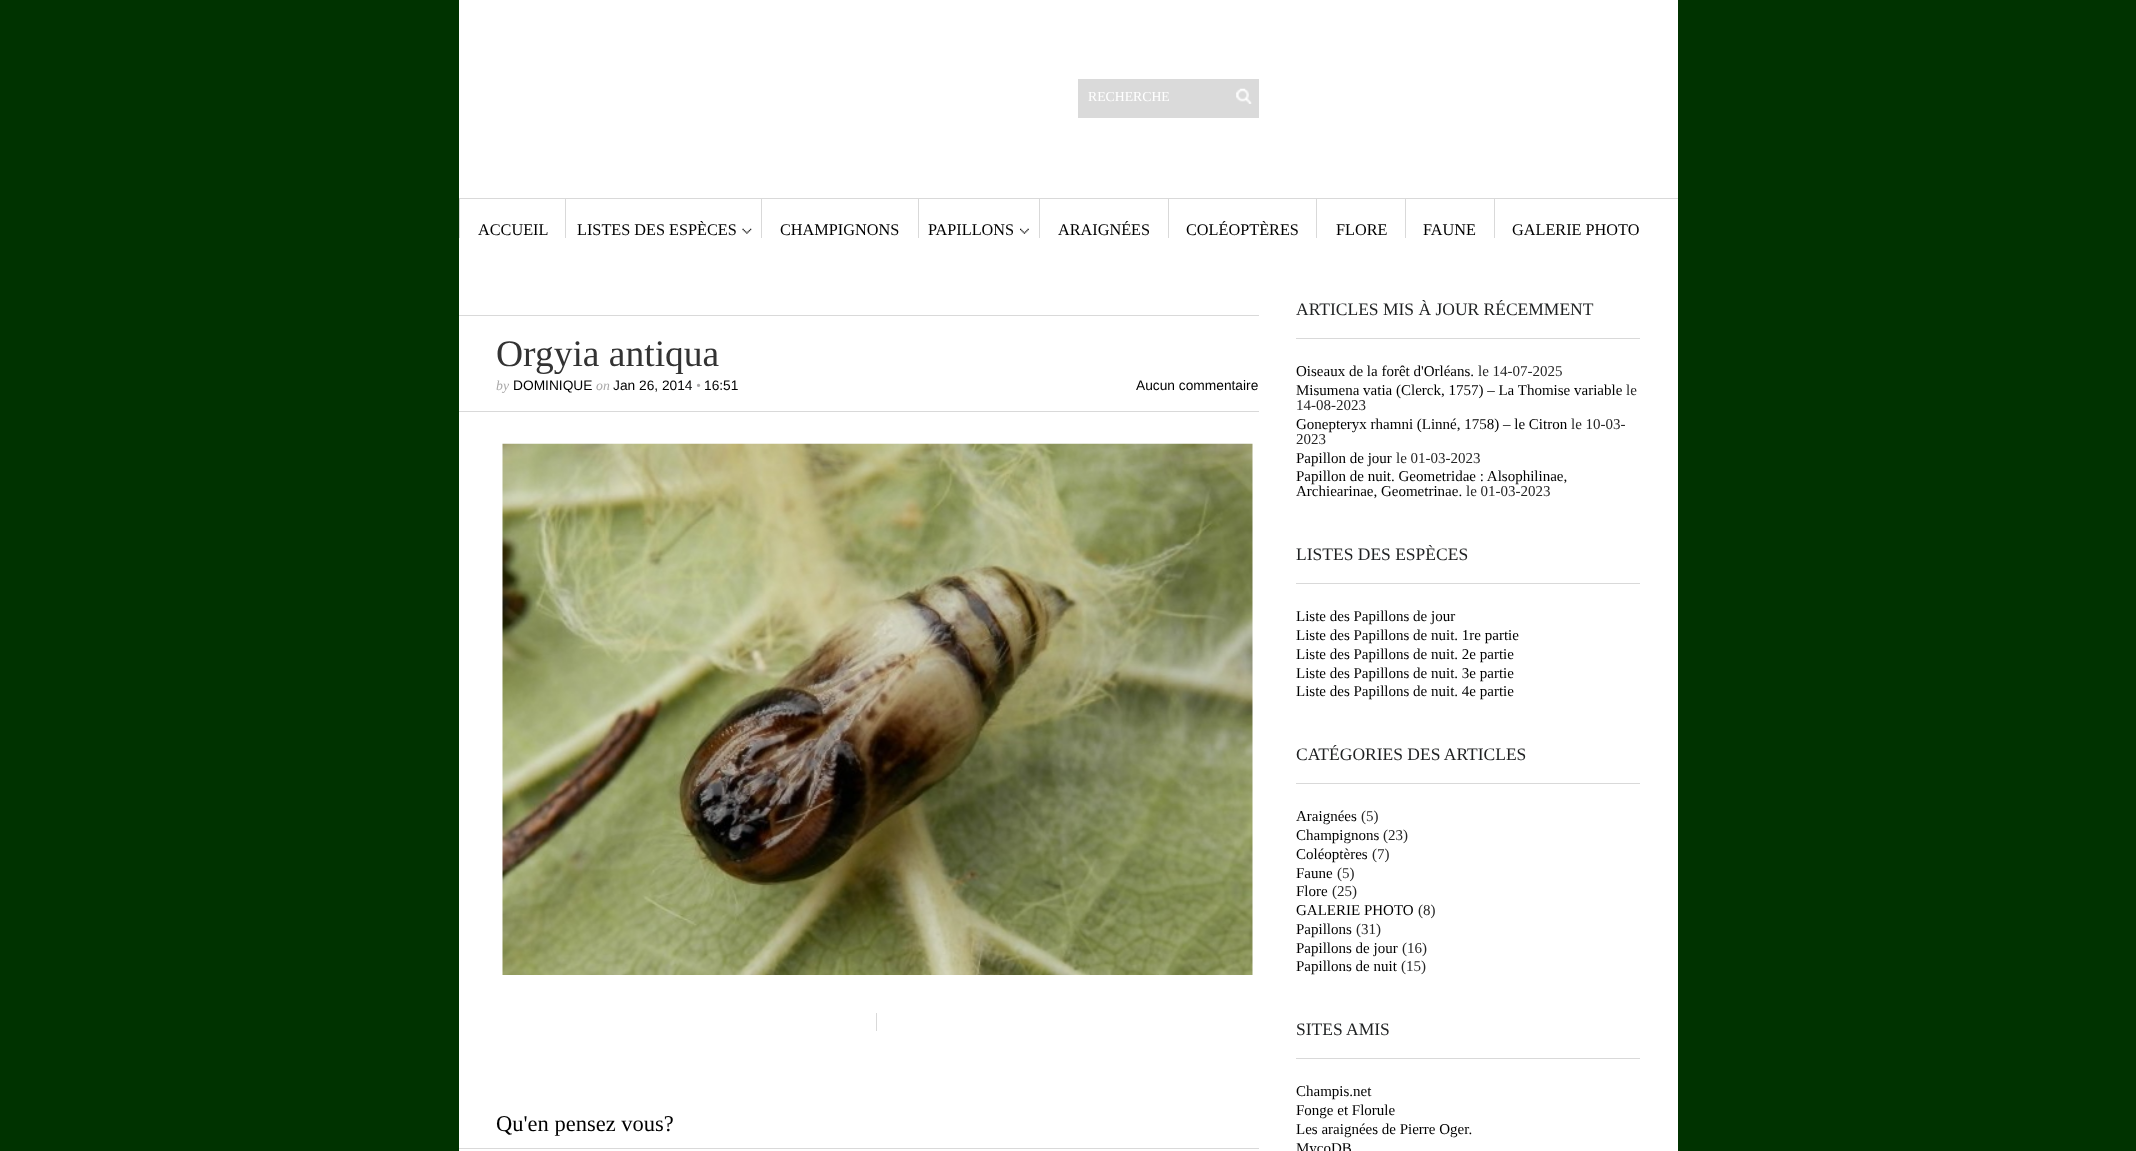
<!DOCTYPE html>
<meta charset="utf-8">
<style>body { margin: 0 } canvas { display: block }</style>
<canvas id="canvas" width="2136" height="1151"></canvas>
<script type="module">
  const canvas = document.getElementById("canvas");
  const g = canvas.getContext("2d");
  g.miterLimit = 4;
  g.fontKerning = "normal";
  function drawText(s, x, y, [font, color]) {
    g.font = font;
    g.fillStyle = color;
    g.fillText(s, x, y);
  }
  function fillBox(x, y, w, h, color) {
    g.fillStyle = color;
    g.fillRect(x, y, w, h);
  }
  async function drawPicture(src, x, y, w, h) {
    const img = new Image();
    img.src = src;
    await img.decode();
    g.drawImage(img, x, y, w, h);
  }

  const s1 = ["13.75px Liberation Serif", "#FFFFFF"];
  const s2 = ["16.25px Liberation Serif", "#000000"];
  const s3 = ["37.5px Liberation Serif", "#333333"];
  const s4 = ["italic 13.75px Liberation Serif", "#AAA9A9"];
  const s5 = ["13.75px Liberation Sans", "#000000"];
  const s6 = ["22.5px Liberation Serif", "#000000"];
  const s7 = ["17.5px Liberation Serif", "#1F2122"];
  const s8 = ["15px Liberation Serif", "#000000"];
  const s9 = ["15px Liberation Serif", "#262626"];

  fillBox(0, 0, 2136, 1151, "#003300");
  fillBox(459, 0, 1219, 1151, "#FFFFFF");
  fillBox(1078, 79, 181, 39, "#DADADA");
  drawText("RECHERCHE", 1088, 101, s1);
  await drawPicture("pic1.png", 1236, 88, 16, 16);
  fillBox(459, 198, 1219, 1, "#D9D9D9");
  fillBox(459, 199, 1, 39, "#D9D9D9");
  drawText("ACCUEIL", 478, 235, s2);
  fillBox(565, 199, 1, 39, "#D9D9D9");
  await drawPicture("pic2.png", 742, 228, 10, 6);
  drawText("LISTES DES ESPÈCES", 577, 235, s2);
  fillBox(761, 199, 1, 39, "#D9D9D9");
  drawText("CHAMPIGNONS", 780, 235, s2);
  fillBox(918, 199, 1, 39, "#D9D9D9");
  await drawPicture("pic3.png", 1020, 228, 9, 6);
  drawText("PAPILLONS", 928, 235, s2);
  fillBox(1039, 199, 1, 39, "#D9D9D9");
  drawText("ARAIGNÉES", 1058, 235, s2);
  fillBox(1168, 199, 1, 39, "#D9D9D9");
  drawText("COLÉOPTÈRES", 1186, 235, s2);
  fillBox(1316, 199, 1, 39, "#D9D9D9");
  drawText("FLORE", 1336, 235, s2);
  fillBox(1405, 199, 1, 39, "#D9D9D9");
  drawText("FAUNE", 1423, 235, s2);
  fillBox(1494, 199, 1, 39, "#D9D9D9");
  drawText("GALERIE PHOTO", 1512, 235, s2);
  fillBox(459, 315, 800, 1, "#D9D9D9");
  fillBox(459, 411, 800, 1, "#D9D9D9");
  drawText("Orgyia antiqua", 496, 366, s3);
  drawText("by", 496, 390, s4);
  drawText("DOMINIQUE", 513, 390, s5);
  drawText("on", 596, 390, s4);
  drawText("Jan 26, 2014", 613, 390, s5);
  drawText("•", 696, 390, s4);
  drawText("16:51", 704, 390, s5);
  drawText("Aucun commentaire", 1136, 390, s5);
  await drawPicture("pic4.png", 502, 443, 751, 532);
  fillBox(876, 1013, 1, 18, "#D9D9D9");
  fillBox(459, 1148, 800, 1, "#D9D9D9");
  drawText("Qu'en pensez vous?", 496, 1131, s6);
  fillBox(1296, 338, 344, 1, "#D9D9D9");
  drawText("ARTICLES MIS À JOUR RÉCEMMENT", 1296, 315, s7);
  drawText("Oiseaux de la forêt d'Orléans.", 1296, 376, s8);
  drawText("le 14-07-2025", 1478, 376, s9);
  drawText("Misumena vatia (Clerck, 1757) – La Thomise variable", 1296, 395, s8);
  drawText("le", 1626, 395, s9);
  drawText("14-08-2023", 1296, 410, s9);
  drawText("Gonepteryx rhamni (Linné, 1758) – le Citron", 1296, 429, s8);
  drawText("le 10-03-", 1571, 429, s9);
  drawText("2023", 1296, 444, s9);
  drawText("Papillon de jour", 1296, 463, s8);
  drawText("le 01-03-2023", 1396, 463, s9);
  drawText("Papillon de nuit. Geometridae : Alsophilinae,", 1296, 481, s8);
  drawText("Archiearinae, Geometrinae.", 1296, 496, s8);
  drawText("le 01-03-2023", 1466, 496, s9);
  fillBox(1296, 583, 344, 1, "#D9D9D9");
  drawText("LISTES DES ESPÈCES", 1296, 560, s7);
  drawText("Liste des Papillons de jour", 1296, 621, s8);
  drawText("Liste des Papillons de nuit. 1re partie", 1296, 640, s8);
  drawText("Liste des Papillons de nuit. 2e partie", 1296, 659, s8);
  drawText("Liste des Papillons de nuit. 3e partie", 1296, 678, s8);
  drawText("Liste des Papillons de nuit. 4e partie", 1296, 696, s8);
  fillBox(1296, 783, 344, 1, "#D9D9D9");
  drawText("CATÉGORIES DES ARTICLES", 1296, 760, s7);
  drawText("Araignées", 1296, 821, s8);
  drawText("(5)", 1361, 821, s9);
  drawText("Champignons", 1296, 840, s8);
  drawText("(23)", 1383, 840, s9);
  drawText("Coléoptères", 1296, 859, s8);
  drawText("(7)", 1372, 859, s9);
  drawText("Faune", 1296, 878, s8);
  drawText("(5)", 1337, 878, s9);
  drawText("Flore", 1296, 896, s8);
  drawText("(25)", 1332, 896, s9);
  drawText("GALERIE PHOTO", 1296, 915, s8);
  drawText("(8)", 1418, 915, s9);
  drawText("Papillons", 1296, 934, s8);
  drawText("(31)", 1356, 934, s9);
  drawText("Papillons de jour", 1296, 953, s8);
  drawText("(16)", 1402, 953, s9);
  drawText("Papillons de nuit", 1296, 971, s8);
  drawText("(15)", 1401, 971, s9);
  fillBox(1296, 1058, 344, 1, "#D9D9D9");
  drawText("SITES AMIS", 1296, 1035, s7);
  drawText("Champis.net", 1296, 1096, s8);
  drawText("Fonge et Florule", 1296, 1115, s8);
  drawText("Les araignées de Pierre Oger.", 1296, 1134, s8);
  drawText("MycoDB", 1296, 1153, s8);
</script>
